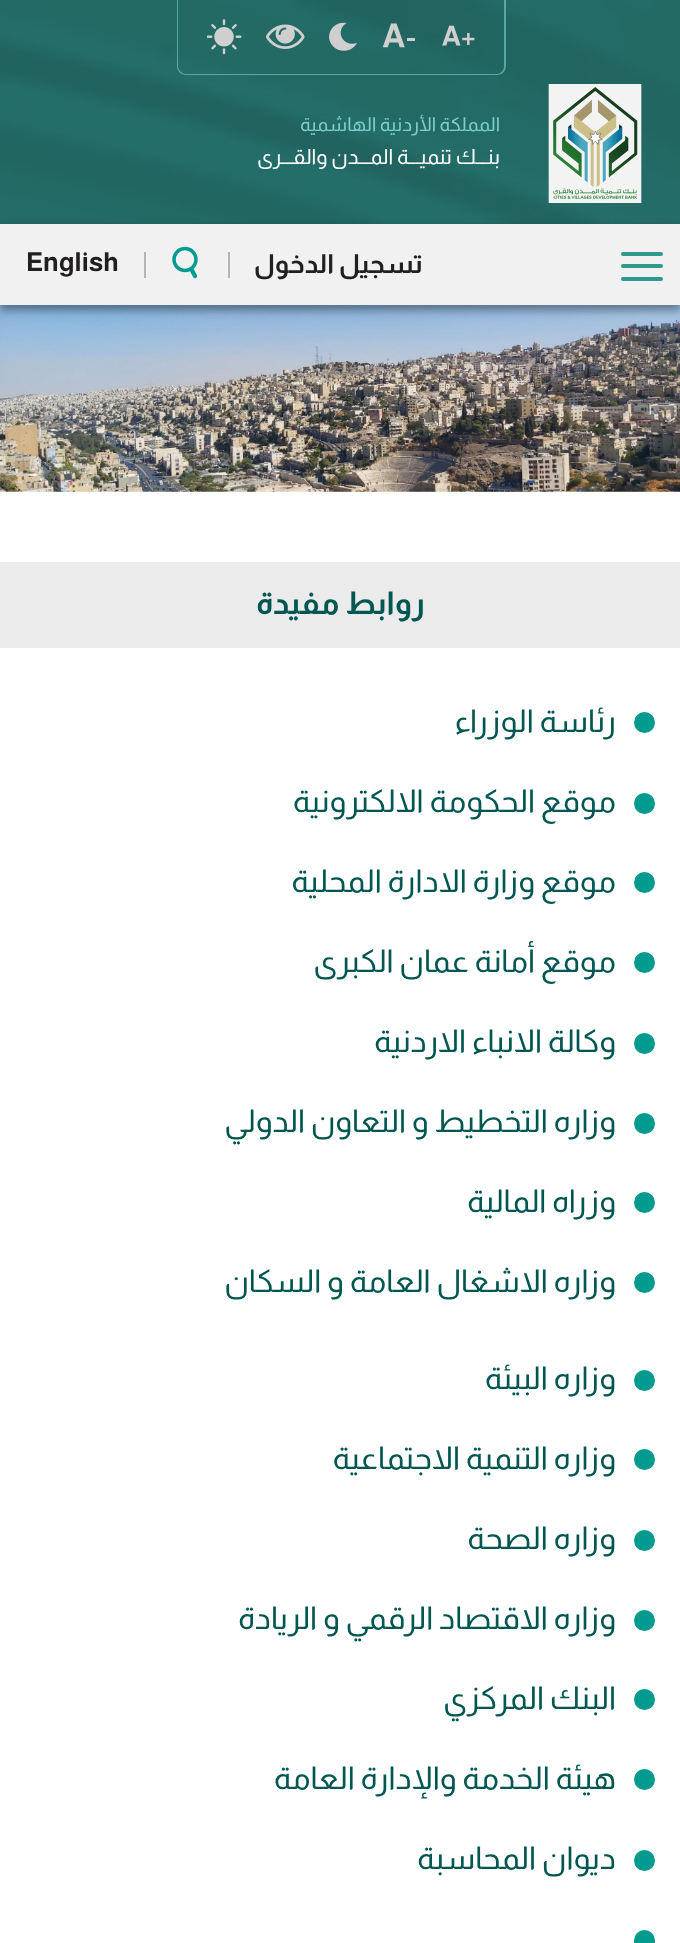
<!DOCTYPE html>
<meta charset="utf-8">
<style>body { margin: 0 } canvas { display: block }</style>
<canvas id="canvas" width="680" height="1943"></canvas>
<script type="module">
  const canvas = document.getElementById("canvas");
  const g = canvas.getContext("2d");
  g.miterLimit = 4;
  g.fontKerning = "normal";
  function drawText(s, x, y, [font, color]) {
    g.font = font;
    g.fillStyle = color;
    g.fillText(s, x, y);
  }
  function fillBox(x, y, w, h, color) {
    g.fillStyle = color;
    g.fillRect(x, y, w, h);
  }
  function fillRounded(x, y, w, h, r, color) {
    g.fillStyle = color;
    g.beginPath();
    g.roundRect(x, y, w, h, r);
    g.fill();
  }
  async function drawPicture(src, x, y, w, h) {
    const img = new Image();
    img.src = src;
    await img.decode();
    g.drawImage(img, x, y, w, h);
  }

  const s1 = ["19.25px Almarai", "#7DCFC9"];
  const s2 = ["21px Almarai", "#FFFFFF"];
  const s3 = ["bold 26.25px Almarai", "#221F1F"];
  const s4 = ["bold 31.5px Almarai", "#005650"];
  const s5 = ["31.5px Almarai", "#005650"];

  fillBox(0, 0, 680, 1943, "#FFFFFF");
  await drawPicture("pic1.png", 0, 0, 680, 224);
  g.fillStyle = "#58A7A1";
  g.beginPath();
  g.moveTo(177, 0);
  g.lineTo(506, 0);
  g.lineTo(506, 66);
  g.bezierCurveTo(506, 71, 502, 75, 497, 75);
  g.lineTo(186, 75);
  g.bezierCurveTo(181, 75, 177, 71, 177, 66);
  g.closePath();
  g.moveTo(178, 0);
  g.lineTo(504, 0);
  g.lineTo(504, 66);
  g.bezierCurveTo(504, 70, 501, 74, 497, 74);
  g.lineTo(186, 74);
  g.bezierCurveTo(182, 74, 178, 70, 178, 66);
  g.closePath();
  g.fill("evenodd");
  await drawPicture("pic2.png", 442, 25, 33, 21);
  await drawPicture("pic3.png", 382, 23, 33, 25);
  await drawPicture("pic4.png", 329, 22, 28, 29);
  await drawPicture("pic5.png", 266, 24, 39, 25);
  await drawPicture("pic6.png", 207, 19, 35, 36);
  await drawPicture("pic7.png", 548, 84, 94, 119);
  g.direction = "rtl";
  drawText("المملكة الأردنية الهاشمية", 500, 131, s1);
  drawText("بنـــك تنميـــة المـــدن والقـــرى", 500, 164, s2);
  await drawPicture("pic8.png", 0, 305, 680, 187);
  g.fillStyle = "rgba(0, 0, 0, 0.4)";
  g.filter = "blur(5px)";
  g.beginPath();
  g.rect(0, 229, 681, 81);
  g.fill();
  g.filter = "none";
  fillBox(0, 224, 680, 81, "#F1F1F1");
  fillRounded(621, 252, 42, 4, 2, "#2E9A8F");
  fillRounded(621, 264, 42, 4, 2, "#2E9A8F");
  fillRounded(621, 277, 42, 4, 2, "#2E9A8F");
  drawText("تسجيل الدخول", 423, 273, s3);
  fillBox(228, 252, 2, 26, "#B4B4B4");
  g.beginPath();
  g.arc(185, 259.5, 11, 0, Math.PI * 2);
  g.strokeStyle = "#009A8F";
  g.lineWidth = 3.4;
  g.stroke();
  g.beginPath();
  g.moveTo(191.5, 269.5);
  g.lineTo(195, 276);
  g.lineWidth = 4.3;
  g.lineCap = "round";
  g.stroke();
  fillBox(144, 252, 2, 26, "#B4B4B4");
  g.direction = "ltr";
  drawText("English", 26, 271, s3);
  fillBox(0, 562, 680, 86, "#EBEBEB");
  g.direction = "rtl";
  drawText("روابط مفيدة", 425, 614, s4);
  g.fillStyle = "#009A8F";
  g.beginPath();
  g.arc(644.5, 722.5, 10.5, 0, Math.PI * 2);
  g.fill();
  drawText("رئاسة الوزراء", 616, 732, s5);
  g.fillStyle = "#009A8F";
  g.beginPath();
  g.arc(644.5, 803.5, 10.5, 0, Math.PI * 2);
  g.fill();
  drawText("موقع الحكومة الالكترونية", 616, 812, s5);
  g.fillStyle = "#009A8F";
  g.beginPath();
  g.arc(644.5, 882.5, 10.5, 0, Math.PI * 2);
  g.fill();
  drawText("موقع وزارة الادارة المحلية", 616, 892, s5);
  g.fillStyle = "#009A8F";
  g.beginPath();
  g.arc(644.5, 962.5, 10.5, 0, Math.PI * 2);
  g.fill();
  drawText("موقع أمانة عمان الكبرى", 616, 972, s5);
  g.fillStyle = "#009A8F";
  g.beginPath();
  g.arc(644.5, 1043.5, 10.5, 0, Math.PI * 2);
  g.fill();
  drawText("وكالة الانباء الاردنية", 616, 1052, s5);
  g.fillStyle = "#009A8F";
  g.beginPath();
  g.arc(644.5, 1123.5, 10.5, 0, Math.PI * 2);
  g.fill();
  drawText("وزاره التخطيط و التعاون الدولي", 616, 1132, s5);
  g.fillStyle = "#009A8F";
  g.beginPath();
  g.arc(644.5, 1202.5, 10.5, 0, Math.PI * 2);
  g.fill();
  drawText("وزراه المالية", 616, 1212, s5);
  g.fillStyle = "#009A8F";
  g.beginPath();
  g.arc(644.5, 1282.5, 10.5, 0, Math.PI * 2);
  g.fill();
  drawText("وزاره الاشغال العامة و السكان", 616, 1292, s5);
  g.fillStyle = "#009A8F";
  g.beginPath();
  g.arc(644.5, 1380.5, 10.5, 0, Math.PI * 2);
  g.fill();
  drawText("وزاره البيئة", 616, 1389, s5);
  g.fillStyle = "#009A8F";
  g.beginPath();
  g.arc(644.5, 1459.5, 10.5, 0, Math.PI * 2);
  g.fill();
  drawText("وزاره التنمية الاجتماعية", 616, 1469, s5);
  g.fillStyle = "#009A8F";
  g.beginPath();
  g.arc(644.5, 1540.5, 10.5, 0, Math.PI * 2);
  g.fill();
  drawText("وزاره الصحة", 616, 1549, s5);
  g.fillStyle = "#009A8F";
  g.beginPath();
  g.arc(644.5, 1620.5, 10.5, 0, Math.PI * 2);
  g.fill();
  drawText("وزاره الاقتصاد الرقمي و الريادة", 616, 1629, s5);
  g.fillStyle = "#009A8F";
  g.beginPath();
  g.arc(644.5, 1699.5, 10.5, 0, Math.PI * 2);
  g.fill();
  drawText("البنك المركزي", 616, 1709, s5);
  g.fillStyle = "#009A8F";
  g.beginPath();
  g.arc(644.5, 1779.5, 10.5, 0, Math.PI * 2);
  g.fill();
  drawText("هيئة الخدمة والإدارة العامة", 616, 1789, s5);
  g.fillStyle = "#009A8F";
  g.beginPath();
  g.arc(644.5, 1860.5, 10.5, 0, Math.PI * 2);
  g.fill();
  drawText("ديوان المحاسبة", 616, 1869, s5);
  g.fillStyle = "#009A8F";
  g.beginPath();
  g.arc(644.5, 1940.5, 10.5, 0, Math.PI * 2);
  g.fill();
</script>
